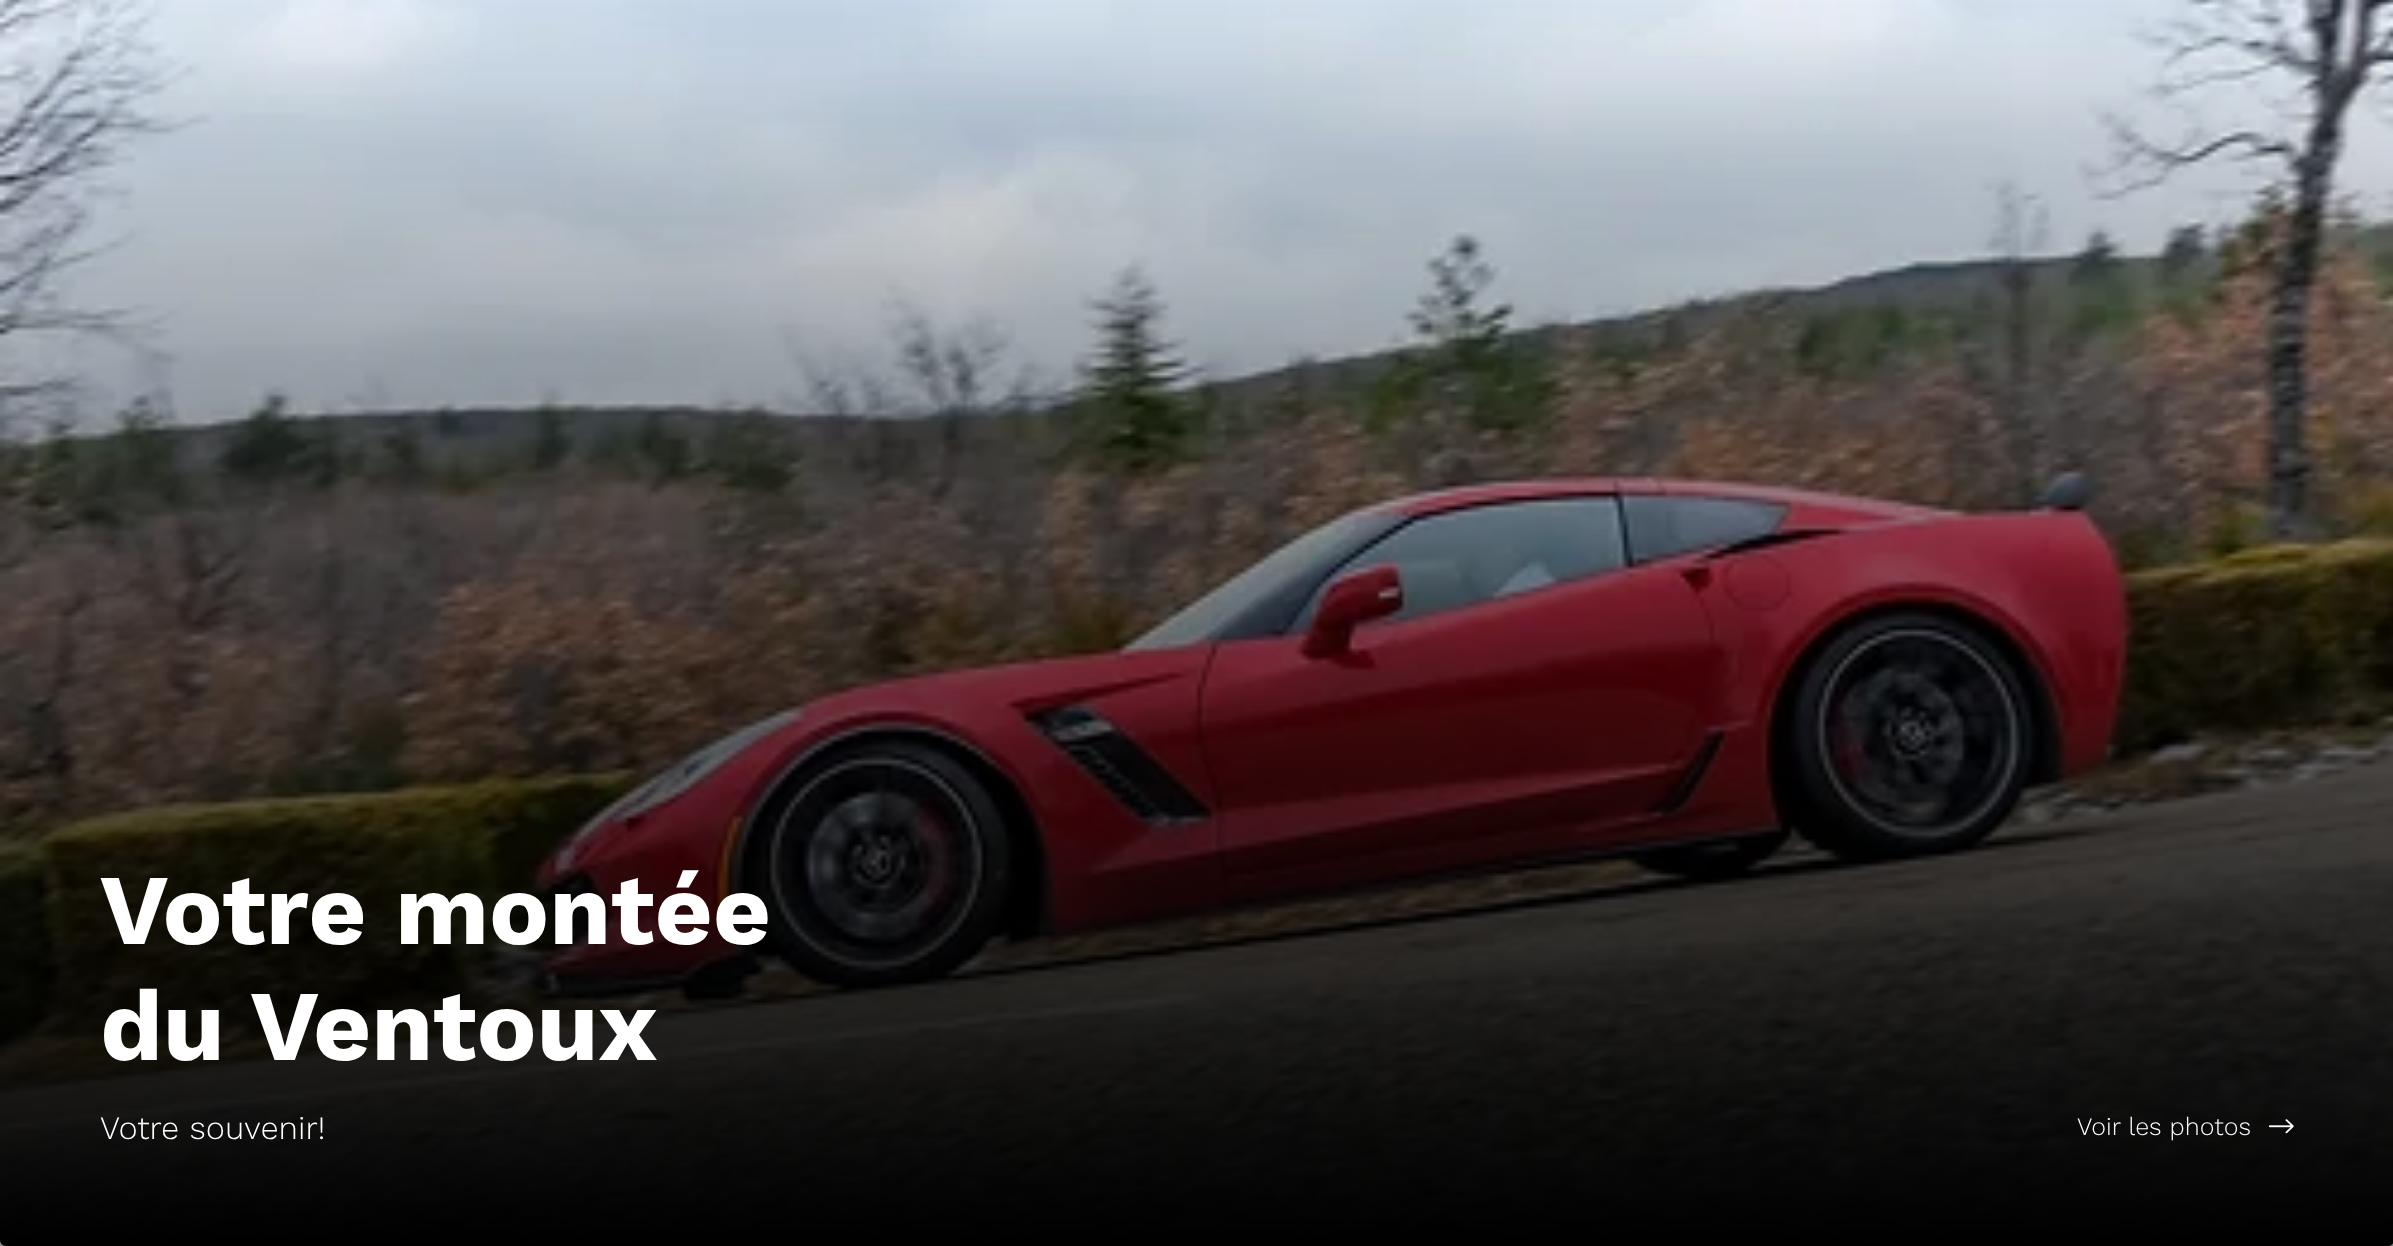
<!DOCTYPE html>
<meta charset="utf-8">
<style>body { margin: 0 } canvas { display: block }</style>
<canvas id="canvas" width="2393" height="1246"></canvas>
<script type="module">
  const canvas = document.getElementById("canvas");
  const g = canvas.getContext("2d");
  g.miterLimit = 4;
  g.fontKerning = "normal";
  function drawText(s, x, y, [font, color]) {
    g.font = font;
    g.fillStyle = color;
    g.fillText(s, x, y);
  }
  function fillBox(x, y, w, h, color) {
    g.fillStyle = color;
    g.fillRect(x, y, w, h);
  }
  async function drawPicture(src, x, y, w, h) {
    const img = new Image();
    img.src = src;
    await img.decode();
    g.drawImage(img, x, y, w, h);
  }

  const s1 = ["bold 100px Work Sans", "#FFFFFF"];
  const s2 = ["300 32.5px Work Sans", "#FFFFFF"];
  const s3 = ["300 25px Work Sans", "#FFFFFF"];

  fillBox(0, 0, 2393, 1246, "#FFFFFF");
  await drawPicture("pic1.png", 0, 0, 2393, 1246);
  drawText("Votre montée", 100, 944, s1);
  drawText("du Ventoux", 100, 1060, s1);
  drawText("Votre souvenir!", 100, 1139, s2);
  drawText("Voir les photos", 2077, 1135, s3);
  await drawPicture("pic2.png", 2269, 1119, 25, 15);
</script>
